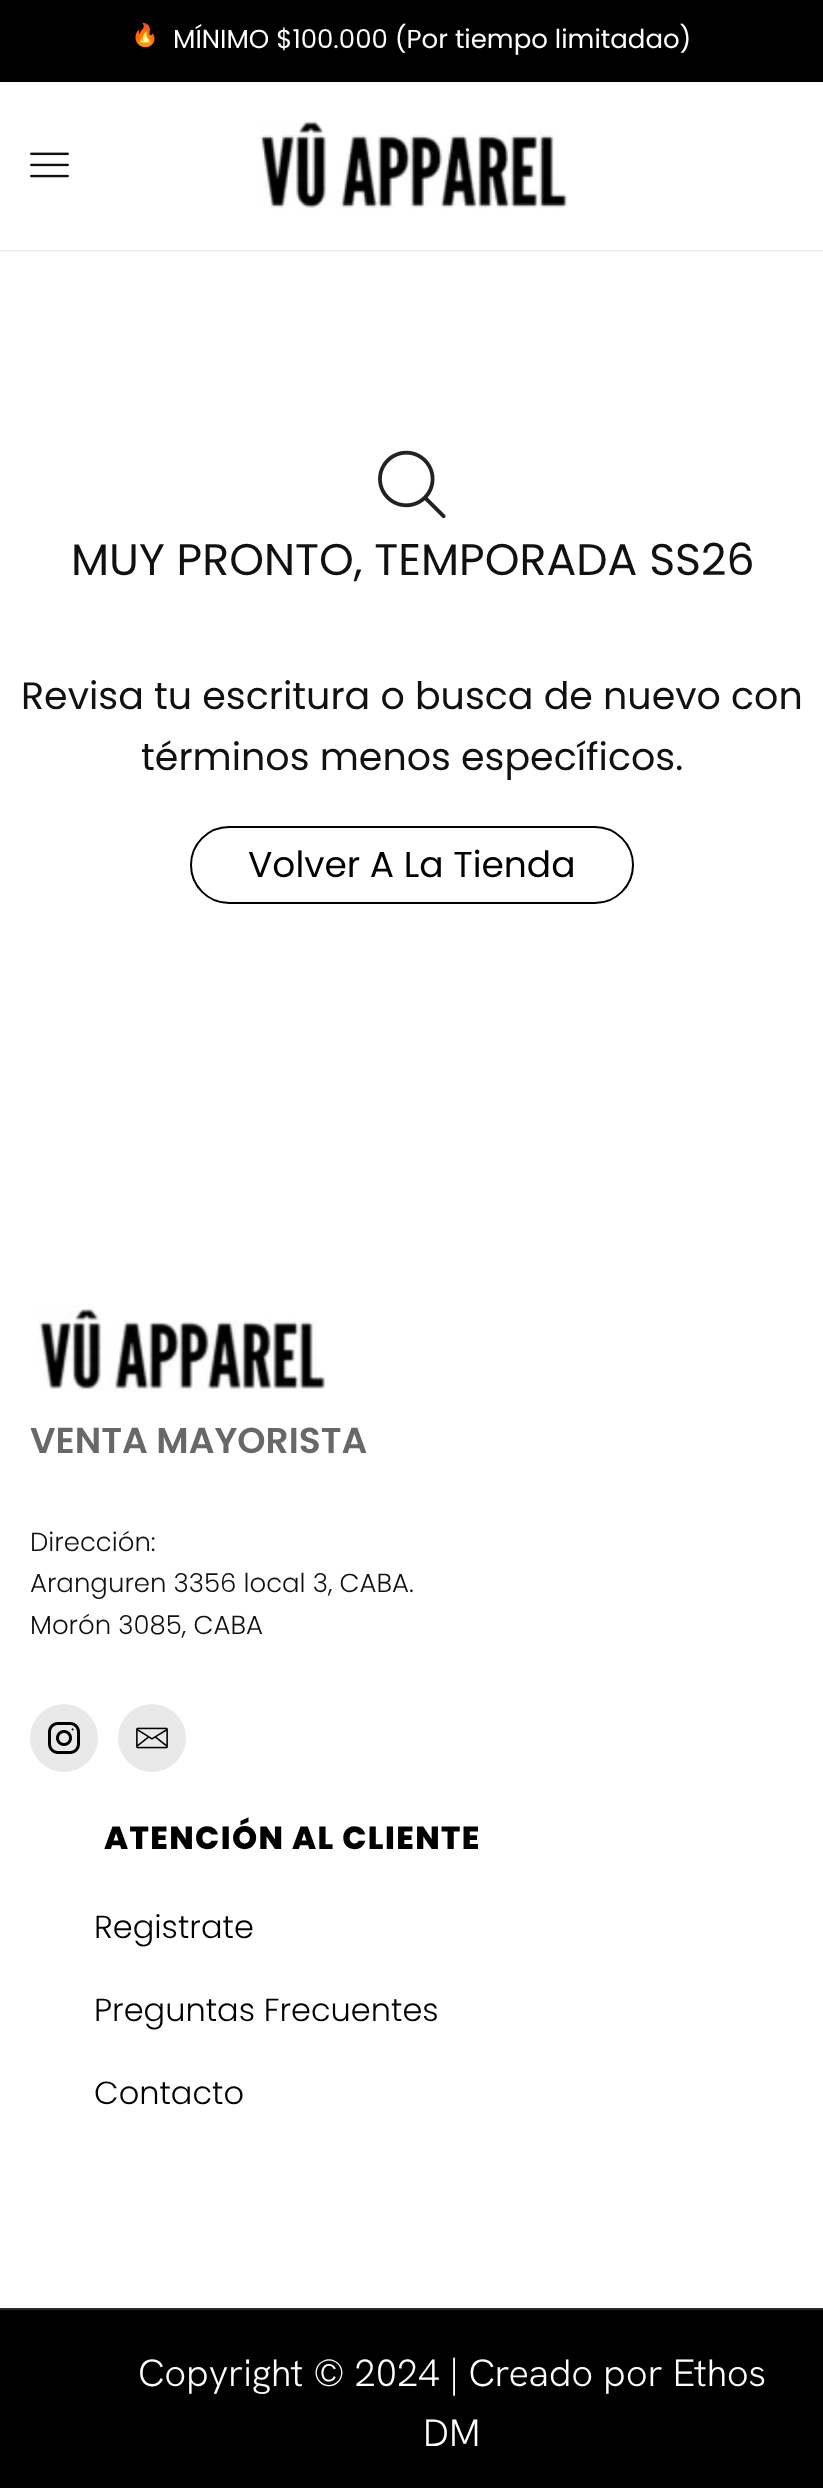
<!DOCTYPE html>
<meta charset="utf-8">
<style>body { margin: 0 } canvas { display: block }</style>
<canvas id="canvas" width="823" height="2488"></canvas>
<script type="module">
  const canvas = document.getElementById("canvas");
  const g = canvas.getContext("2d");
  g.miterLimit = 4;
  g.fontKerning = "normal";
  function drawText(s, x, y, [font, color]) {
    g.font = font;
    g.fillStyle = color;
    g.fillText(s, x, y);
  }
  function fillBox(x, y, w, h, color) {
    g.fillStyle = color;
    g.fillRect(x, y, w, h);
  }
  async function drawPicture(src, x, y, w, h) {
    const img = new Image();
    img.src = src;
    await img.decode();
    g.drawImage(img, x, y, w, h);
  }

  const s1 = ["26px Poppins", "#FFFFFF"];
  const s2 = ["44.25px Poppins", "#111111"];
  const s3 = ["38px Poppins", "#111111"];
  const s4 = ["36px Poppins", "#000000"];
  const s5 = ["600 36px Poppins", "#686868"];
  const s6 = ["300 26px Poppins", "#111111"];
  const s7 = ["800 32px Poppins", "#000000"];
  const s8 = ["300 32px Poppins", "#000000"];
  const s9 = ["300 38px Hanken Grotesk", "#FFFFFF"];

  fillBox(0, 0, 823, 2488, "#FFFFFF");
  fillBox(0, 0, 823, 82, "#000000");
  await drawPicture("pic1.png", 135, 22, 20, 26);
  drawText("MÍNIMO $100.000 (Por tiempo limitadao)", 173, 48, s1);
  g.save();
  g.beginPath();
  g.moveTo(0, 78);
  g.lineTo(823, 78);
  g.lineTo(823, 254);
  g.lineTo(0, 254);
  g.closePath();
  g.moveTo(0, 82);
  g.lineTo(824, 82);
  g.lineTo(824, 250);
  g.lineTo(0, 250);
  g.closePath();
  g.clip("evenodd");
  g.fillStyle = "rgba(0, 0, 0, 0.28)";
  g.filter = "blur(1px)";
  g.beginPath();
  g.rect(0, 82, 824, 168);
  g.fill();
  g.filter = "none";
  g.restore();
  await drawPicture("pic2.png", 30, 152, 39, 26);
  await drawPicture("pic3.png", 260, 120, 308, 89);
  await drawPicture("pic4.png", 378, 450, 68, 69);
  drawText("MUY PRONTO, TEMPORADA SS26", 71, 575, s2);
  drawText("Revisa tu escritura o busca de nuevo con", 21, 709, s3);
  drawText("términos menos específicos.", 141, 770, s3);
  g.beginPath();
  g.roundRect(191, 827, 442, 76, 38);
  g.strokeStyle = "#000000";
  g.lineWidth = 2;
  g.stroke();
  drawText("Volver A La Tienda", 248, 877, s4);
  await drawPicture("pic5.png", 38, 1304, 288, 88);
  drawText("VENTA MAYORISTA", 30, 1453, s5);
  drawText("Dirección:", 30, 1551, s6);
  drawText("Aranguren 3356 local 3, CABA.", 30, 1592, s6);
  drawText("Morón 3085, CABA", 30, 1634, s6);
  g.fillStyle = "#E9E9E9";
  g.beginPath();
  g.arc(64, 1738, 34, 0, Math.PI * 2);
  g.fill();
  await drawPicture("pic6.png", 48, 1722, 32, 32);
  g.beginPath();
  g.arc(152, 1738, 34, 0, Math.PI * 2);
  g.fill();
  await drawPicture("pic7.png", 136, 1727, 32, 22);
  g.letterSpacing = "1.4px";
  drawText("ATENCIÓN AL CLIENTE", 104, 1849, s7);
  g.letterSpacing = "0px";
  drawText("Registrate", 94, 1938, s8);
  drawText("Preguntas Frecuentes", 94, 2021, s8);
  drawText("Contacto", 94, 2104, s8);
  fillBox(0, 2310, 823, 178, "#000000");
  fillBox(0, 2308, 823, 2, "#2B2B2B");
  drawText("Copyright © 2024 | Creado por Ethos", 138, 2386, s9);
  drawText("DM", 423, 2446, s9);
</script>
